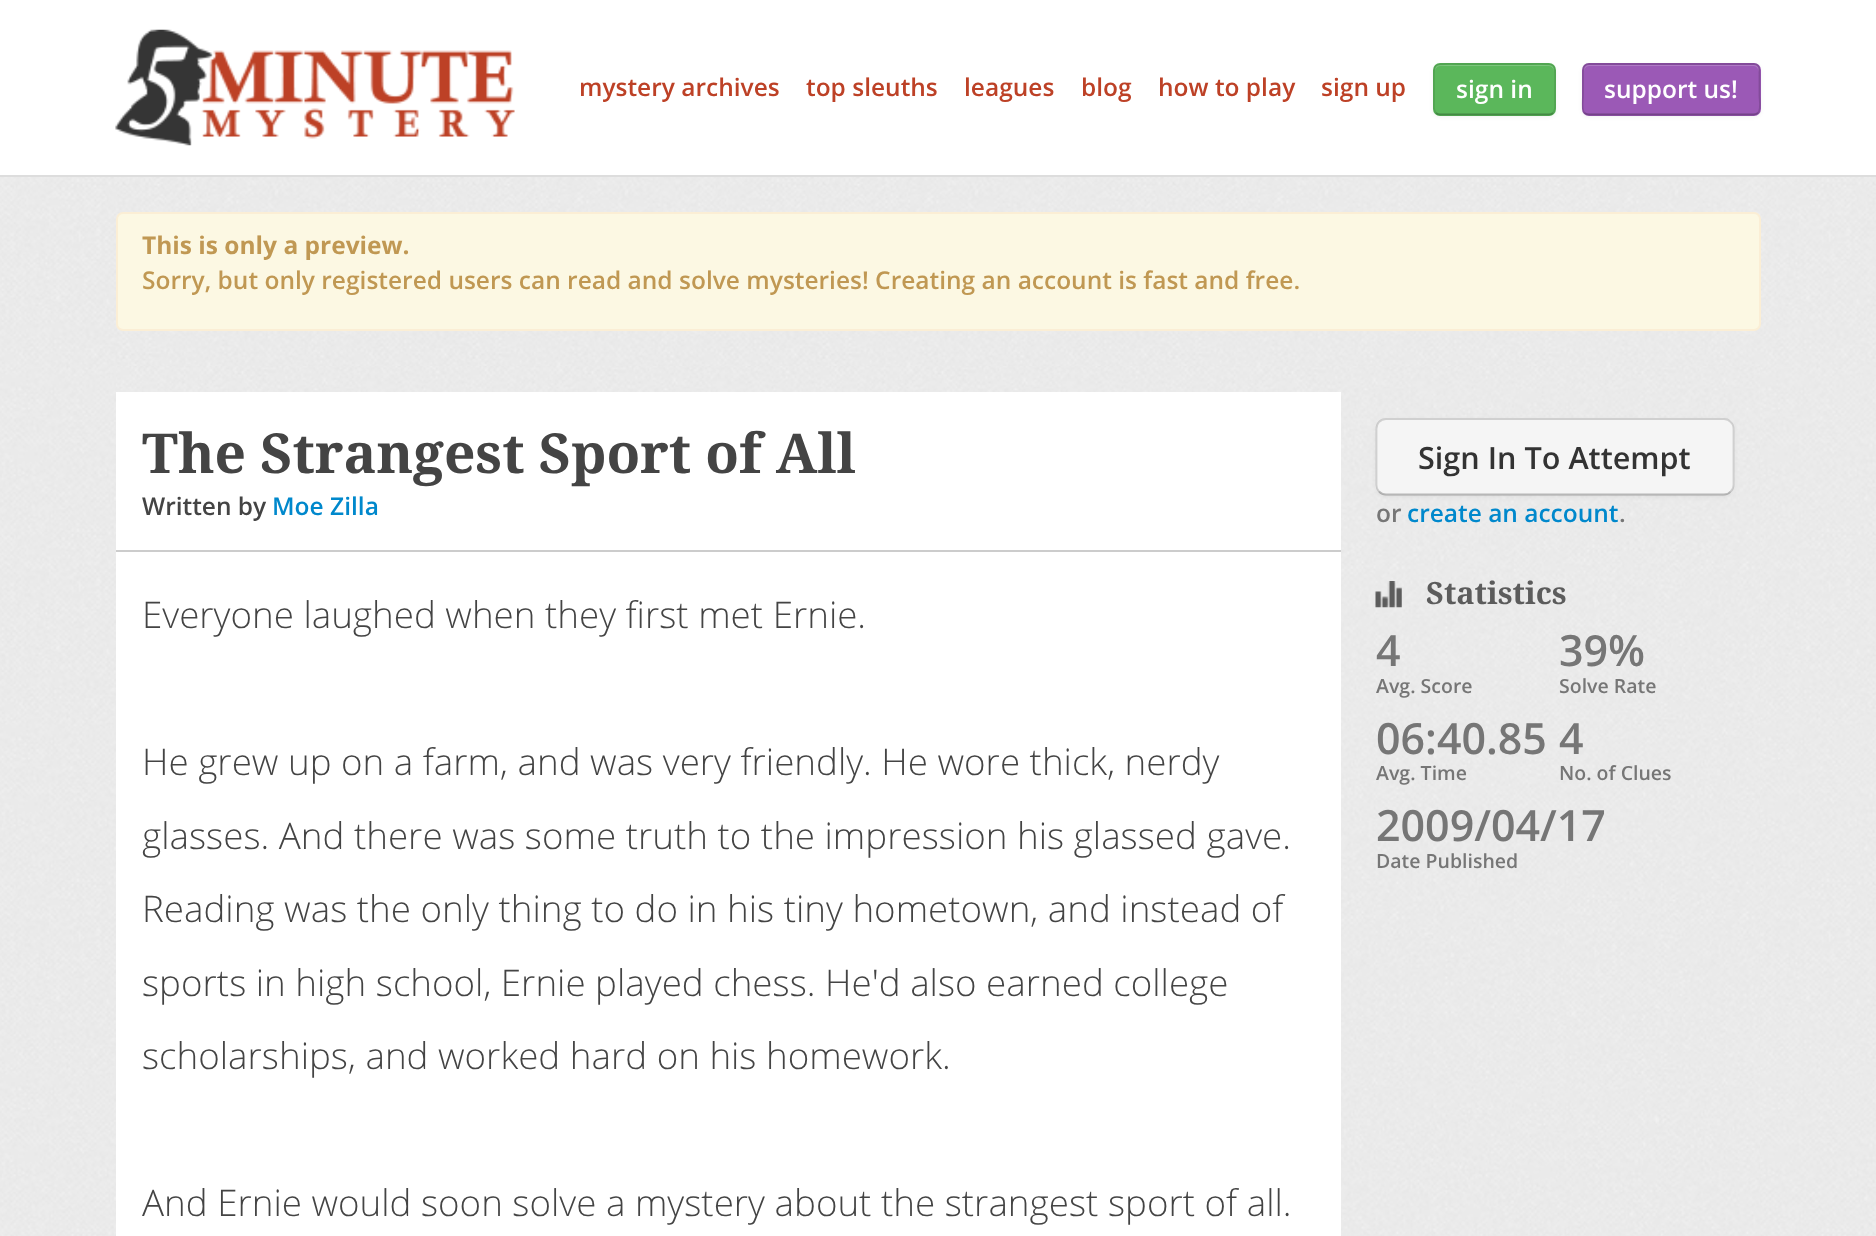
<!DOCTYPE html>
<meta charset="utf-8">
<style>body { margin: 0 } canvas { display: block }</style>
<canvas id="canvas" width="1876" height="1236"></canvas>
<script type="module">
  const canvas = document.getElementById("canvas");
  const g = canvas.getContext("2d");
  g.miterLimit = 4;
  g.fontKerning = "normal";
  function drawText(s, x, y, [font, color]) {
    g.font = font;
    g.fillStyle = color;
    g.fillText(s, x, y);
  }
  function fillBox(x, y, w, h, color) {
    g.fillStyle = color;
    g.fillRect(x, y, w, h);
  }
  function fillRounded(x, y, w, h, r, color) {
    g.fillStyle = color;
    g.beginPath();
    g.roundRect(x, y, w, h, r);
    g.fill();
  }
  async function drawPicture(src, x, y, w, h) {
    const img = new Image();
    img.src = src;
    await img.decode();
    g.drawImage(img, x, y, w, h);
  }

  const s1 = ["600 24.5px Open Sans", "#BD4126"];
  const s2 = ["600 24.5px Open Sans", "#FFFFFF"];
  const s3 = ["bold 24.5px Open Sans", "#C09853"];
  const s4 = ["600 24.5px Open Sans", "#C09853"];
  const s5 = ["bold 55.1px Droid Serif", "#444444"];
  const s6 = ["600 24.5px Open Sans", "#444444"];
  const s7 = ["600 24.5px Open Sans", "#0088CC"];
  const s8 = ["300 36.75px Open Sans", "#444444"];
  const s9 = ["600 30.6px Open Sans", "#333333"];
  const s10 = ["600 24.5px Open Sans", "#767676"];
  const s11 = ["bold 30.6px Droid Serif", "#5C5C5C"];
  const s12 = ["600 43px Open Sans", "#767676"];
  const s13 = ["600 19.5px Open Sans", "#767676"];

  fillBox(0, 0, 1876, 1236, "#FFFFFF");
  await drawPicture("pic1.png", 0, 177, 1876, 1059);
  fillBox(0, 175, 1876, 2, "#DDDDDD");
  await drawPicture("pic2.png", 115, 29, 400, 117);
  drawText("mystery archives", 579, 96, s1);
  drawText("top sleuths", 806, 96, s1);
  drawText("leagues", 964, 96, s1);
  drawText("blog", 1081, 96, s1);
  drawText("how to play", 1158, 96, s1);
  drawText("sign up", 1321, 96, s1);
  g.fillStyle = "rgba(0, 0, 0, 0.05)";
  g.filter = "blur(2px)";
  g.beginPath();
  g.roundRect(1433, 65, 123, 52, 7);
  g.fill();
  g.filter = "none";
  fillRounded(1433, 63, 123, 53, 7, "#5BB75B");
  g.fillStyle = "#7CC57C";
  g.beginPath();
  g.moveTo(1440, 66);
  g.lineTo(1549, 66);
  g.bezierCurveTo(1552, 66, 1554, 69, 1554, 72);
  g.lineTo(1554, 70);
  g.bezierCurveTo(1554, 67, 1552, 65, 1549, 65);
  g.lineTo(1440, 65);
  g.bezierCurveTo(1437, 65, 1435, 67, 1435, 70);
  g.lineTo(1435, 72);
  g.bezierCurveTo(1435, 69, 1437, 66, 1440, 66);
  g.closePath();
  g.fill();
  g.beginPath();
  g.moveTo(1553, 113);
  g.bezierCurveTo(1552, 114, 1550.5, 114.5, 1549, 114.5);
  g.lineTo(1440, 114.5);
  g.bezierCurveTo(1438.5, 114.5, 1437, 114, 1436, 113);
  g.strokeStyle = "#448944";
  g.lineWidth = 1.8;
  g.stroke();
  g.beginPath();
  g.moveTo(1436, 113);
  g.bezierCurveTo(1433, 110, 1434, 105.5, 1434, 102);
  g.lineTo(1434, 89);
  g.bezierCurveTo(1434, 61, 1430, 64, 1458.5, 64);
  g.lineTo(1530.5, 64);
  g.bezierCurveTo(1559, 64, 1555, 61, 1555, 89);
  g.lineTo(1555, 102);
  g.bezierCurveTo(1555, 105.5, 1556, 110, 1553, 113);
  g.strokeStyle = "rgba(0, 0, 0, 0.1)";
  g.stroke();
  drawText("sign in", 1456, 98, s2);
  g.fillStyle = "rgba(0, 0, 0, 0.05)";
  g.filter = "blur(2px)";
  g.beginPath();
  g.roundRect(1582, 65, 179, 52, 7);
  g.fill();
  g.filter = "none";
  fillRounded(1582, 63, 179, 53, 7, "#9B59B6");
  g.fillStyle = "#AF7AC5";
  g.beginPath();
  g.moveTo(1589, 66);
  g.lineTo(1754, 66);
  g.bezierCurveTo(1756, 66, 1759, 69, 1759, 72);
  g.lineTo(1759, 70);
  g.bezierCurveTo(1759, 67, 1757, 65, 1754, 65);
  g.lineTo(1589, 65);
  g.bezierCurveTo(1586, 65, 1584, 67, 1584, 70);
  g.lineTo(1584, 72);
  g.bezierCurveTo(1584, 69, 1586, 66, 1589, 66);
  g.closePath();
  g.fill();
  g.beginPath();
  g.moveTo(1758, 113);
  g.bezierCurveTo(1756.5, 114, 1755, 114.5, 1753.5, 114.5);
  g.lineTo(1589, 114.5);
  g.bezierCurveTo(1587.5, 114.5, 1586, 114, 1584.5, 113);
  g.strokeStyle = "rgba(0, 0, 0, 0.25)";
  g.stroke();
  g.beginPath();
  g.moveTo(1584.5, 113);
  g.bezierCurveTo(1581, 109.5, 1583, 99.5, 1583, 95.5);
  g.lineTo(1583, 76.5);
  g.bezierCurveTo(1583, 71.5, 1582, 64, 1589, 64);
  g.lineTo(1753.5, 64);
  g.bezierCurveTo(1760.5, 64, 1759.5, 71.5, 1759.5, 76.5);
  g.lineTo(1759.5, 95.5);
  g.bezierCurveTo(1759.5, 99.5, 1761.5, 109.5, 1758, 113);
  g.strokeStyle = "rgba(0, 0, 0, 0.15)";
  g.stroke();
  drawText("support us!", 1604, 98, s2);
  g.fillStyle = "#FCF8E3";
  g.beginPath();
  g.roundRect(117, 213, 1643, 117, 6);
  g.fill();
  g.strokeStyle = "#FBEED5";
  g.lineWidth = 2;
  g.stroke();
  drawText("This is only a preview.", 142, 254, s3);
  drawText("Sorry, but only registered users can read and solve mysteries! Creating an account is fast and free.", 142, 289, s4);
  await drawPicture("pic3.png", 116, 366, 1644, 870);
  fillBox(116, 392, 1225, 158, "#FFFFFF");
  fillBox(116, 550, 1225, 2, "#CCCCCC");
  drawText("The Strangest Sport of All", 142, 473, s5);
  drawText("Written by", 142, 515, s6);
  drawText("Moe Zilla", 272, 515, s7);
  fillBox(116, 552, 1225, 684, "#FFFFFF");
  drawText("Everyone laughed when they first met Ernie.", 142, 628, s8);
  drawText("He grew up on a farm, and was very friendly. He wore thick, nerdy", 142, 775, s8);
  drawText("glasses. And there was some truth to the impression his glassed gave.", 142, 849, s8);
  drawText("Reading was the only thing to do in his tiny hometown, and instead of", 142, 922, s8);
  drawText("sports in high school, Ernie played chess. He'd also earned college", 142, 996, s8);
  drawText("scholarships, and worked hard on his homework.", 142, 1069, s8);
  drawText("And Ernie would soon solve a mystery about the strangest sport of all.", 142, 1216, s8);
  g.fillStyle = "rgba(0, 0, 0, 0.05)";
  g.filter = "blur(2px)";
  g.beginPath();
  g.roundRect(1376, 420, 358, 77, 11);
  g.fill();
  g.filter = "none";
  fillRounded(1376, 418, 358, 77, 11, "#F5F5F5");
  g.beginPath();
  g.moveTo(1730.5, 491.5);
  g.bezierCurveTo(1729, 493.5, 1726.5, 494.5, 1724, 494.5);
  g.lineTo(1386, 494.5);
  g.bezierCurveTo(1383.5, 494.5, 1381, 493.5, 1379, 491.5);
  g.strokeStyle = "rgba(0, 0, 0, 0.25)";
  g.lineWidth = 1.8;
  g.stroke();
  g.beginPath();
  g.moveTo(1379, 491.5);
  g.bezierCurveTo(1377.5, 490, 1376.5, 487.5, 1376.5, 485);
  g.lineTo(1376.5, 429);
  g.bezierCurveTo(1376.5, 426, 1377.5, 423.5, 1379, 422);
  g.bezierCurveTo(1381, 420, 1383.5, 419, 1386, 419);
  g.lineTo(1724, 419);
  g.bezierCurveTo(1726.5, 419, 1729, 420, 1730.5, 422);
  g.bezierCurveTo(1732.5, 423.5, 1733.5, 426, 1733.5, 429);
  g.lineTo(1733.5, 485);
  g.bezierCurveTo(1733.5, 487.5, 1732.5, 490, 1730.5, 491.5);
  g.strokeStyle = "rgba(0, 0, 0, 0.15)";
  g.stroke();
  drawText("Sign In To Attempt", 1418, 469, s9);
  drawText("or", 1376, 522, s10);
  drawText("create an account", 1407, 522, s7);
  drawText(".", 1619, 522, s10);
  await drawPicture("pic4.png", 1375, 581, 27, 27);
  drawText("Statistics", 1426, 604, s11);
  drawText("4", 1376, 666, s12);
  drawText("Avg. Score", 1376, 693, s13);
  drawText("39%", 1559, 666, s12);
  drawText("Solve Rate", 1559, 693, s13);
  drawText("06:40.85", 1376, 754, s12);
  drawText("Avg. Time", 1376, 780, s13);
  drawText("4", 1559, 754, s12);
  drawText("No. of Clues", 1559, 780, s13);
  drawText("2009/04/17", 1376, 841, s12);
  drawText("Date Published", 1376, 868, s13);
</script>
